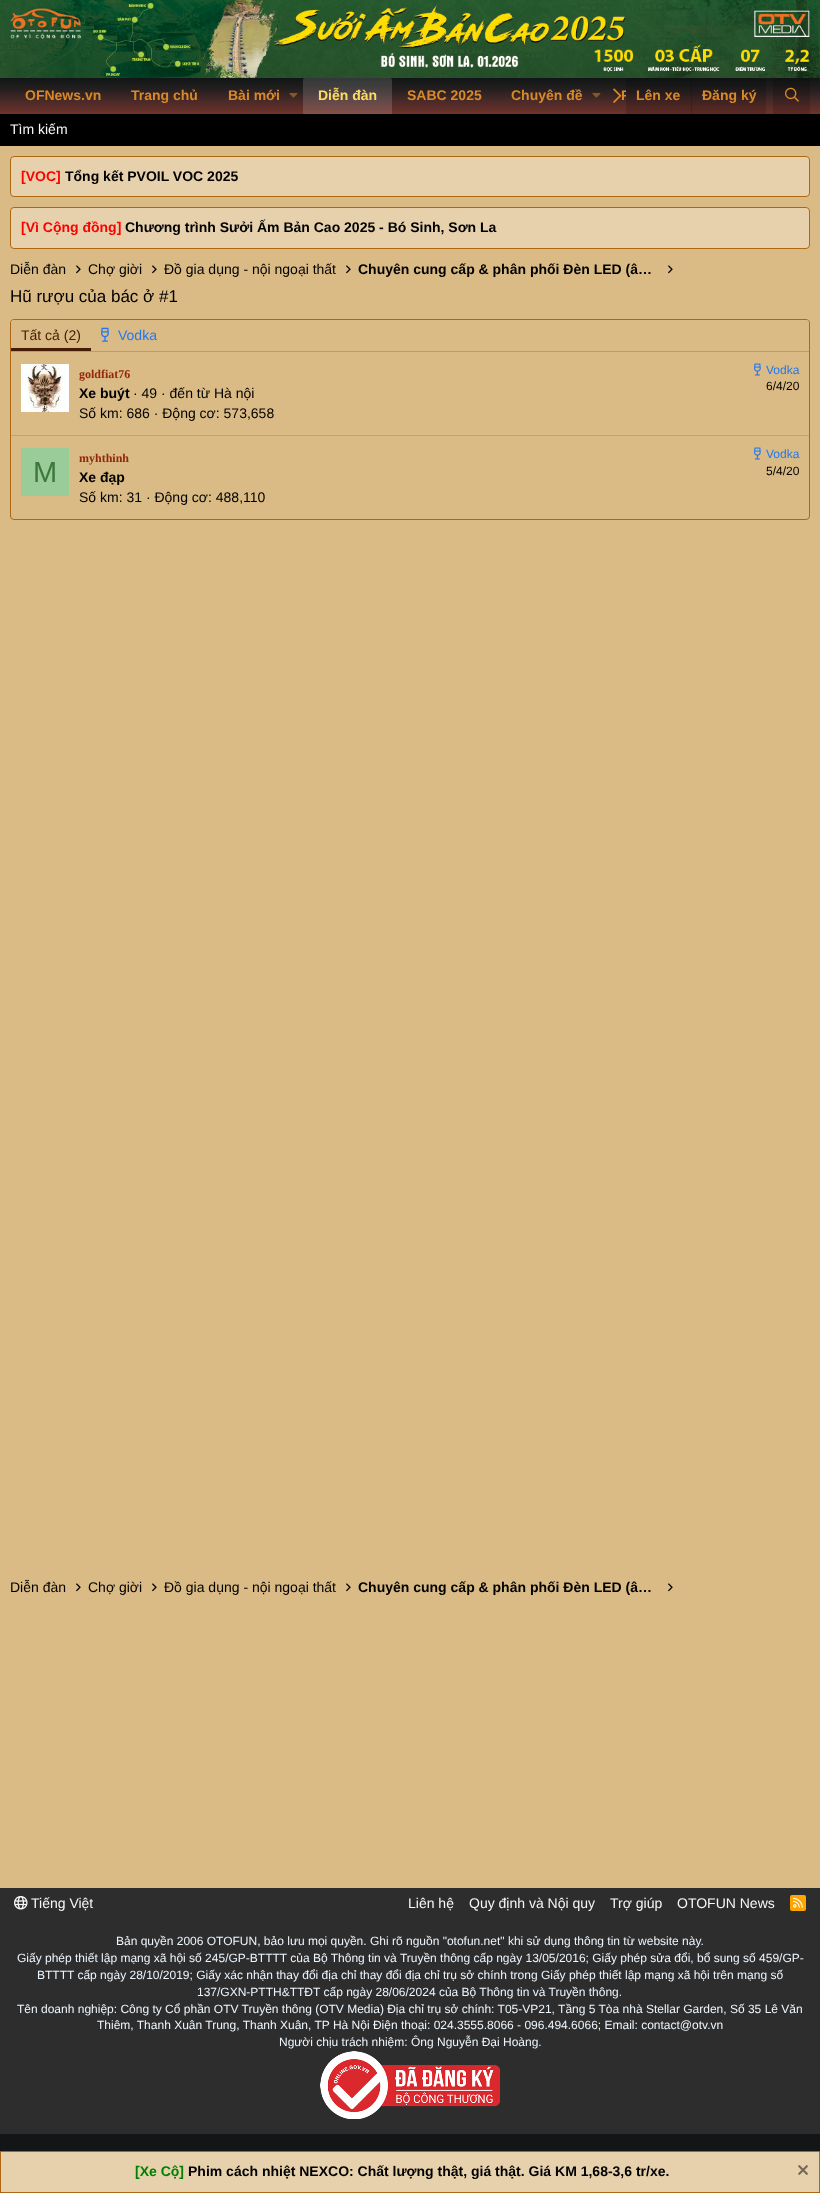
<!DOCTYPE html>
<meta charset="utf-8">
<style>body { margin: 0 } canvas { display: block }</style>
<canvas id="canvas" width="820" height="2193"></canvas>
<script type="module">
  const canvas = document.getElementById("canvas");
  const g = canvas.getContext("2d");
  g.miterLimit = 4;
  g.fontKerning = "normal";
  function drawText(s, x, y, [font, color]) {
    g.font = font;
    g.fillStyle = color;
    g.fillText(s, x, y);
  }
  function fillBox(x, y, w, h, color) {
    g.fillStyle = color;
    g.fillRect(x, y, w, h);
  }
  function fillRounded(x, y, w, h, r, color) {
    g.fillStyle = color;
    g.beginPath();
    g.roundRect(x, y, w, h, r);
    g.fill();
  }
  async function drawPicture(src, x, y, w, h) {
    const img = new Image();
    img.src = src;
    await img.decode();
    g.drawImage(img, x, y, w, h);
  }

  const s1 = ["bold 14px Liberation Sans", "#DB8928"];
  const s2 = ["bold 14px Liberation Sans", "#FDDC62"];
  const s3 = ["14px Liberation Sans", "#F7F7F7"];
  const s4 = ["bold 14px Liberation Sans", "#FF0000"];
  const s5 = ["bold 14px Liberation Sans", "#000000"];
  const s6 = ["14px Liberation Sans", "#000000"];
  const s7 = ["17px Liberation Sans", "#000000"];
  const s8 = ["14px Liberation Sans", "#441B03"];
  const s9 = ["14px Liberation Sans", "#2078F4"];
  const s10 = ["bold 12px Liberation Serif", "#912809"];
  const s11 = ["12px Liberation Sans", "#2078F4"];
  const s12 = ["12px Liberation Sans", "#000000"];
  const s13 = ["29px Liberation Sans", "#3C773C"];
  const s14 = ["12px Liberation Sans", "#EDF6FD"];
  const s15 = ["bold 14px Liberation Sans", "#008000"];

  fillBox(0, 0, 820, 2193, "#141517");
  await drawPicture("pic1.png", 0, 0, 820, 78);
  await drawPicture("pic2.png", 0, 78, 820, 36);
  drawText("OFNews.vn", 25, 100, s1);
  drawText("Trang chủ", 131, 100, s1);
  drawText("Bài mới", 228, 100, s1);
  await drawPicture("pic3.png", 289, 93, 9, 5);
  g.fillStyle = "rgba(255, 255, 255, 0.15)";
  g.beginPath();
  g.roundRect(303, 78, 89, 36, [2, 2, 0, 0]);
  g.fill();
  drawText("Diễn đàn", 318, 100, s2);
  drawText("SABC 2025", 407, 100, s1);
  drawText("Chuyên đề", 511, 100, s1);
  await drawPicture("pic3.png", 592, 93, 9, 5);
  g.save();
  g.beginPath();
  g.rect(0, 78, 626, 36);
  g.clip();
  drawText("F", 621, 100, s1);
  g.restore();
  await drawPicture("pic4.png", 613, 88, 9, 15);
  g.fillStyle = "rgba(0, 0, 0, 0.15)";
  g.beginPath();
  g.roundRect(626, 78, 140, 36, [4, 4, 0, 0]);
  g.fill();
  drawText("Lên xe", 636, 100, s1);
  fillBox(691, 78, 1, 36, "rgba(0, 0, 0, 0.15)");
  drawText("Đăng ký", 702, 100, s1);
  g.fillStyle = "rgba(0, 0, 0, 0.15)";
  g.beginPath();
  g.roundRect(773, 78, 37, 36, [4, 4, 0, 0]);
  g.fill();
  await drawPicture("pic5.png", 785, 87, 14, 15);
  fillBox(0, 114, 820, 32, "#000000");
  drawText("Tìm kiếm", 10, 134, s3);
  fillBox(0, 146, 820, 1742, "#DABB85");
  g.fillStyle = "#E6D1AC";
  g.beginPath();
  g.roundRect(10.5, 156.5, 799, 40, 3.5);
  g.fill();
  g.strokeStyle = "#AE6814";
  g.stroke();
  drawText("[VOC]", 21, 181, s4);
  drawText("Tổng kết PVOIL VOC 2025", 65, 181, s5);
  g.fillStyle = "#E6D1AC";
  g.beginPath();
  g.roundRect(10.5, 207.5, 799, 41, 3.5);
  g.fill();
  g.stroke();
  drawText("[Vì Cộng đồng]", 21, 232, s4);
  drawText("Chương trình Sưởi Ấm Bản Cao 2025 - Bó Sinh, Sơn La", 125, 232, s5);
  drawText("Diễn đàn", 10, 274, s6);
  await drawPicture("pic6.png", 76, 265, 5, 9);
  drawText("Chợ giời", 88, 274, s6);
  await drawPicture("pic6.png", 152, 265, 5, 9);
  drawText("Đồ gia dụng - nội ngoại thất", 164, 274, s6);
  await drawPicture("pic6.png", 346, 265, 5, 9);
  drawText("Chuyên cung cấp & phân phối Đèn LED (â…", 358, 274, s5);
  await drawPicture("pic6.png", 668, 265, 5, 9);
  drawText("Hũ rượu của bác ở #1", 10, 302, s7);
  g.beginPath();
  g.roundRect(10.5, 319.5, 799, 200, 3.5);
  g.stroke();
  g.fillStyle = "#DABB85";
  g.beginPath();
  g.roundRect(11, 320, 798, 32, [3, 3, 0, 0]);
  g.fill();
  fillBox(11, 351, 798, 1, "#C89A4A");
  fillBox(11, 348, 80, 3, "#441B03");
  drawText("Tất cả (2)", 21, 340, s8);
  await drawPicture("pic7.png", 101, 327, 8, 15);
  drawText("Vodka", 118, 340, s9);
  await drawPicture("pic8.png", 21, 364, 48, 48);
  drawText("goldfiat76", 79, 378, s10);
  await drawPicture("pic9.png", 754, 363, 7, 13);
  drawText("Vodka", 766, 374, s11);
  drawText("6/4/20", 766, 390, s12);
  drawText("Xe buýt", 79, 398, s5);
  drawText("· 49 · đến từ Hà nội", 133, 398, s6);
  drawText("Số km: 686 · Động cơ: 573,658", 79, 418, s6);
  fillBox(11, 435, 798, 1, "#CCA156");
  fillBox(21, 448, 48, 48, "#99CC99");
  drawText("M", 33, 482, s13);
  drawText("myhthinh", 79, 462, s10);
  await drawPicture("pic9.png", 754, 447, 7, 13);
  drawText("Vodka", 766, 458, s11);
  drawText("5/4/20", 766, 475, s12);
  drawText("Xe đạp", 79, 482, s5);
  drawText("Số km: 31 · Động cơ: 488,110", 79, 502, s6);
  drawText("Diễn đàn", 10, 1592, s6);
  await drawPicture("pic6.png", 76, 1583, 5, 9);
  drawText("Chợ giời", 88, 1592, s6);
  await drawPicture("pic6.png", 152, 1583, 5, 9);
  drawText("Đồ gia dụng - nội ngoại thất", 164, 1592, s6);
  await drawPicture("pic6.png", 346, 1583, 5, 9);
  drawText("Chuyên cung cấp & phân phối Đèn LED (â…", 358, 1592, s5);
  await drawPicture("pic6.png", 668, 1583, 5, 9);
  fillBox(0, 1888, 820, 246, "#2D2D2D");
  await drawPicture("pic10.png", 14, 1896, 14, 14);
  drawText("Tiếng Việt", 31, 1908, s3);
  drawText("Liên hệ", 408, 1908, s3);
  drawText("Quy định và Nội quy", 469, 1908, s3);
  drawText("Trợ giúp", 610, 1908, s3);
  drawText("OTOFUN News", 677, 1908, s3);
  fillRounded(790, 1895, 16, 16, 2, "#FFA500");
  await drawPicture("pic11.png", 793, 1897, 10, 11);
  drawText("Bản quyền 2006 OTOFUN, bảo lưu mọi quyền. Ghi rõ nguồn \"otofun.net\" khi sử dụng thông tin từ website này.", 116, 1945, s14);
  drawText("Giấy phép thiết lập mạng xã hội số 245/GP-BTTTT của Bộ Thông tin và Truyền thông cấp ngày 13/05/2016; Giấy phép sửa đổi, bổ sung số 459/GP-", 17, 1962, s14);
  drawText("BTTTT cấp ngày 28/10/2019; Giấy xác nhận thay đổi địa chỉ thay đổi địa chỉ trụ sở chính trong Giấy phép thiết lập mạng xã hội trên mạng số", 37, 1979, s14);
  drawText("137/GXN-PTTH&TTĐT cấp ngày 28/06/2024 của Bộ Thông tin và Truyền thông.", 197, 1996, s14);
  drawText("Tên doanh nghiệp: Công ty Cổ phần OTV Truyền thông (OTV Media) Địa chỉ trụ sở chính: T05-VP21, Tầng 5 Tòa nhà Stellar Garden, Số 35 Lê Văn", 17, 2013, s14);
  drawText("Thiêm, Thanh Xuân Trung, Thanh Xuân, TP Hà Nội Điện thoại: 024.3555.8066 - 096.494.6066; Email: contact@otv.vn", 97, 2029, s14);
  drawText("Người chịu trách nhiệm: Ông Nguyễn Đại Hoàng.", 279, 2046, s14);
  await drawPicture("pic12.png", 320, 2051, 180, 68);
  g.fillStyle = "#E6D1AC";
  g.beginPath();
  g.rect(0.5, 2151.5, 819, 41);
  g.fill();
  g.stroke();
  drawText("[Xe Cộ]", 135, 2176, s15);
  drawText("Phim cách nhiệt NEXCO: Chất lượng thật, giá thật. Giá KM 1,68-3,6 tr/xe.", 188, 2176, s5);
  await drawPicture("pic13.png", 798, 2165, 10, 10);
</script>
